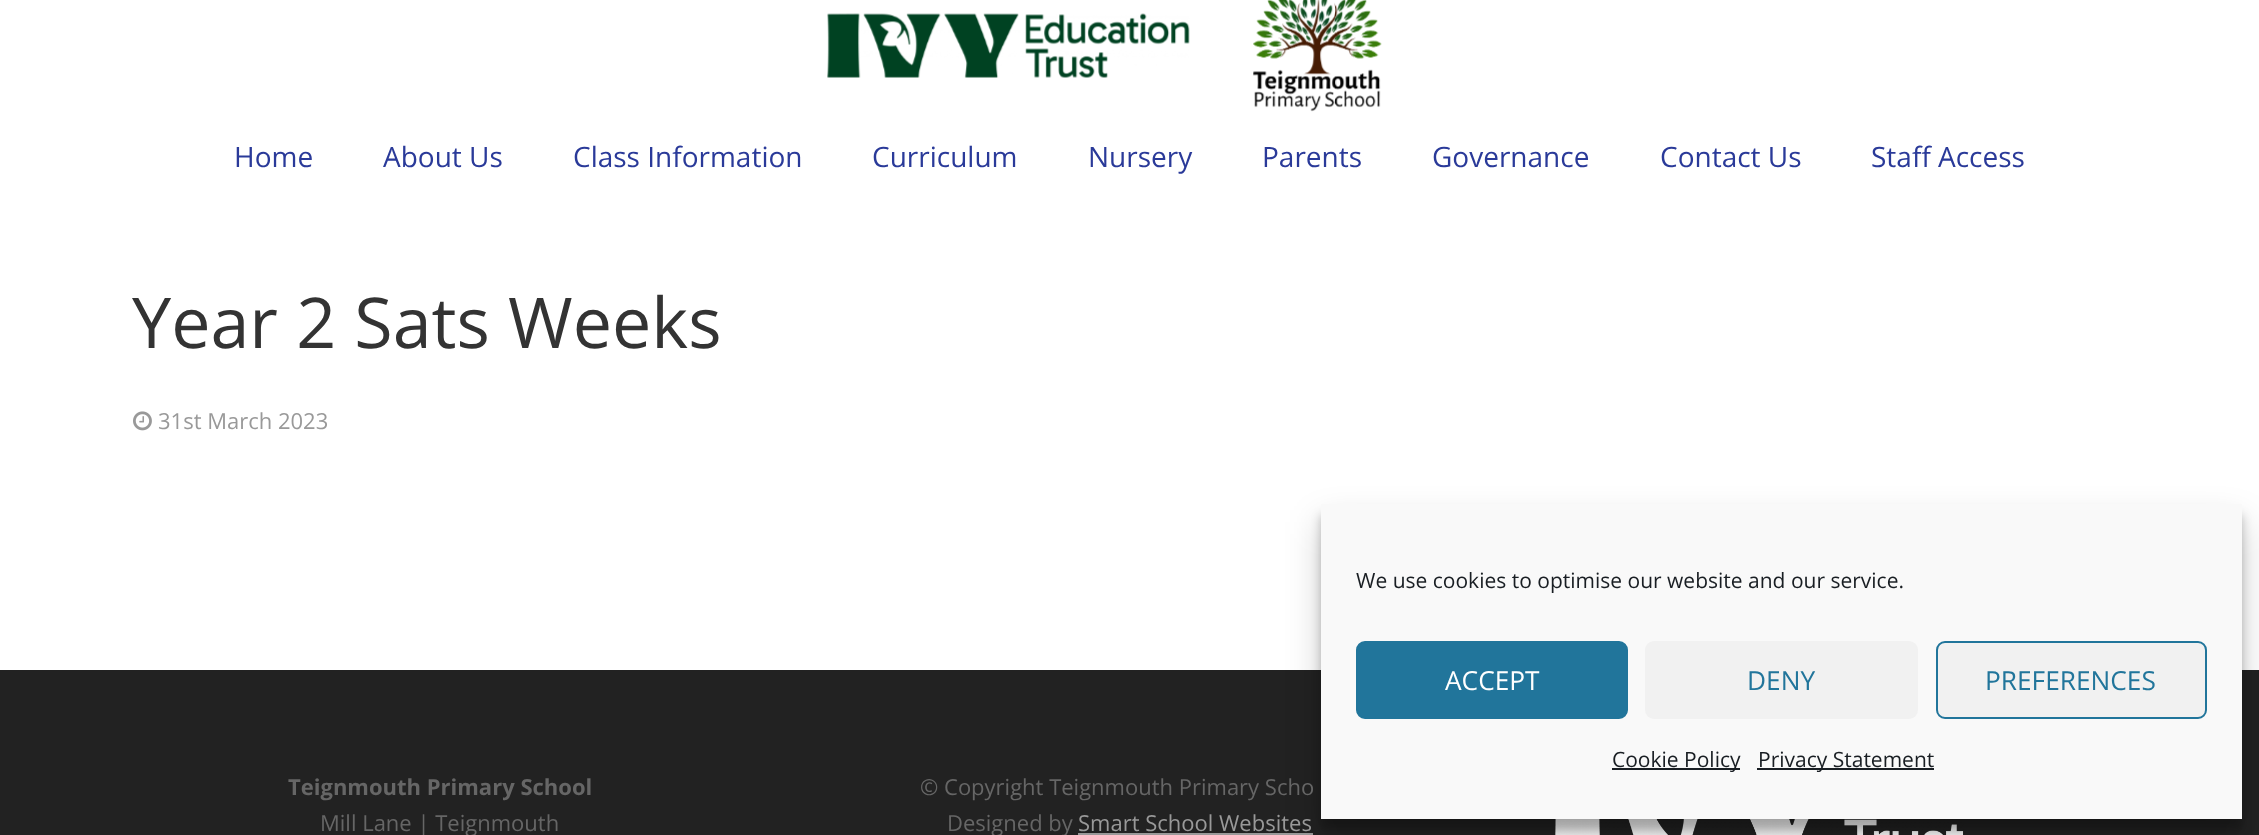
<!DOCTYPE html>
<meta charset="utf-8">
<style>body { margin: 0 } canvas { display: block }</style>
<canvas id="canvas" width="2259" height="835"></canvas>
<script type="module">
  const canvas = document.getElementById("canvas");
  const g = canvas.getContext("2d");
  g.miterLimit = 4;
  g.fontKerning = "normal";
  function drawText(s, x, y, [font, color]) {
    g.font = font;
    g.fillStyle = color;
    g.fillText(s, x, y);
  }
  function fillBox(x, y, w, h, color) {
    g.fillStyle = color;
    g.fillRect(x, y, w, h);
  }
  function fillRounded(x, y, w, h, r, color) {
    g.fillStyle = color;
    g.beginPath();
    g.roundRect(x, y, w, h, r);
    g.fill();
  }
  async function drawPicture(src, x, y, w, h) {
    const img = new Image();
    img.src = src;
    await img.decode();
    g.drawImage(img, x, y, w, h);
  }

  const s1 = ["28px Open Sans", "#2A3A99"];
  const s2 = ["70px Open Sans", "#333333"];
  const s3 = ["22px Open Sans", "#999999"];
  const s4 = ["21px Open Sans", "#191E23"];
  const s5 = ["26.25px Open Sans", "#FFFFFF"];
  const s6 = ["26.25px Open Sans", "#21759B"];
  const s7 = ["bold 22px Open Sans", "#666666"];
  const s8 = ["22px Open Sans", "#666666"];

  fillBox(0, 0, 2259, 835, "#FFFFFF");
  await drawPicture("pic1.png", 827, 13, 363, 65);
  await drawPicture("pic2.png", 1253, 0, 129, 112);
  drawText("Home", 234, 167, s1);
  drawText("About Us", 383, 167, s1);
  drawText("Class Information", 573, 167, s1);
  drawText("Curriculum", 872, 167, s1);
  drawText("Nursery", 1088, 167, s1);
  drawText("Parents", 1262, 167, s1);
  drawText("Governance", 1432, 167, s1);
  drawText("Contact Us", 1660, 167, s1);
  drawText("Staff Access", 1871, 167, s1);
  drawText("Year 2 Sats Weeks", 132, 348, s2);
  await drawPicture("pic3.png", 133, 411, 19, 20);
  drawText("31st March 2023", 158, 429, s3);
  fillBox(0, 670, 2259, 165, "#222222");
  fillBox(1078, 833, 235, 2, "#999999");
  await drawPicture("pic4.png", 1555, 819, 409, 16);
  g.fillStyle = "rgba(0, 0, 0, 0.23)";
  g.filter = "blur(5px)";
  g.beginPath();
  g.rect(1321, 515, 921, 315);
  g.fill();
  g.filter = "none";
  g.fillStyle = "rgba(0, 0, 0, 0.19)";
  g.filter = "blur(17.5px)";
  g.beginPath();
  g.rect(1321, 522, 921, 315);
  g.fill();
  g.filter = "none";
  fillBox(1321, 504, 921, 315, "#F9F9F9");
  drawText("We use cookies to optimise our website and our service.", 1356, 588, s4);
  g.fillStyle = "#21759B";
  g.beginPath();
  g.roundRect(1357, 642, 270, 76, 8);
  g.fill();
  g.strokeStyle = "#21759B";
  g.lineWidth = 2;
  g.stroke();
  drawText("ACCEPT", 1445, 690, s5);
  fillRounded(1645, 641, 273, 78, 9, "#F1F1F1");
  drawText("DENY", 1747, 690, s6);
  g.fillStyle = "#F1F1F1";
  g.beginPath();
  g.roundRect(1937, 642, 269, 76, 8);
  g.fill();
  g.stroke();
  drawText("PREFERENCES", 1985, 690, s6);
  fillBox(1612, 768, 128, 2, "#191E23");
  drawText("Cookie Policy", 1612, 767, s4);
  fillBox(1757, 768, 177, 2, "#191E23");
  drawText("Privacy Statement", 1758, 767, s4);
  drawText("Teignmouth Primary School", 288, 795, s7);
  drawText("Mill Lane | Teignmouth", 320, 831, s8);
  drawText("© Copyright Teignmouth Primary Scho", 920, 795, s8);
  drawText("Designed by", 947, 831, s8);
  drawText("Smart School Websites", 1078, 831, s3);
</script>
